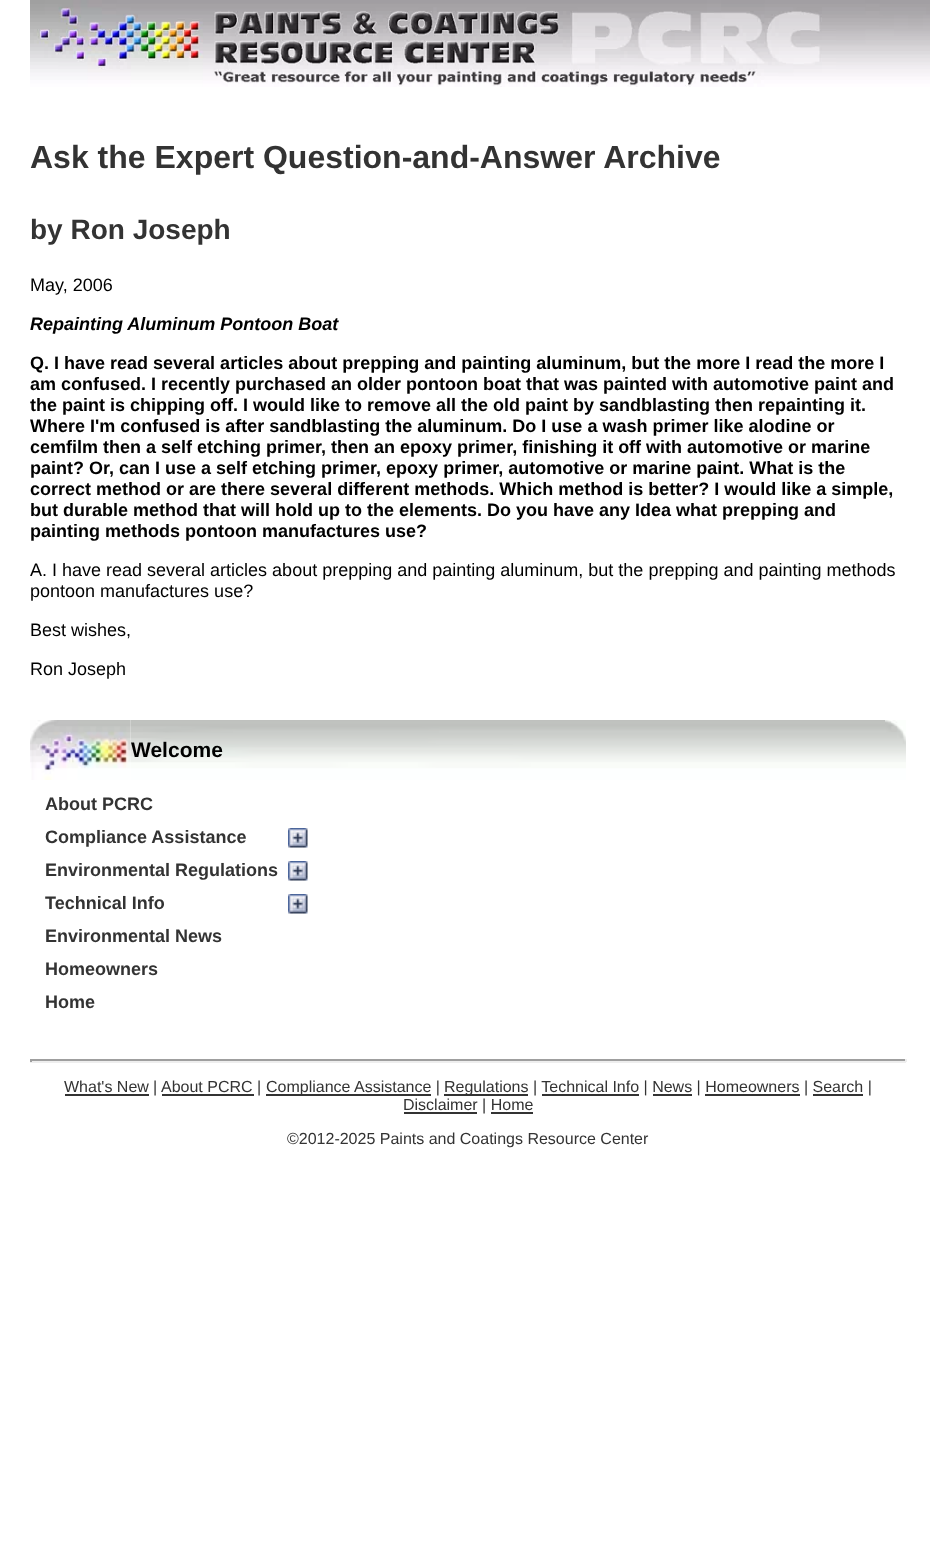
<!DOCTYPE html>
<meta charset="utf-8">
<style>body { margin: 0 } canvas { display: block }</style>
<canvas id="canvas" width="936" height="1566"></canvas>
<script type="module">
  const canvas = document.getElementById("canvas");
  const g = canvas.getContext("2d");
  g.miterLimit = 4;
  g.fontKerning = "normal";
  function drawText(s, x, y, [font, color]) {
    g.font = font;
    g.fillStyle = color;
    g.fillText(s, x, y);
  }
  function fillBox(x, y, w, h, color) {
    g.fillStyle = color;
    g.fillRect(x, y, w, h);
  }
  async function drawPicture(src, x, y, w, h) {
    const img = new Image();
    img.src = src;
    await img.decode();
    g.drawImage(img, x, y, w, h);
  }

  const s1 = ["bold 32px Liberation Sans", "#333333"];
  const s2 = ["bold 28px Liberation Sans", "#333333"];
  const s3 = ["18px Liberation Sans", "#000000"];
  const s4 = ["italic bold 18px Liberation Sans", "#000000"];
  const s5 = ["bold 18px Liberation Sans", "#000000"];
  const s6 = ["bold 21px Liberation Sans", "#000000"];
  const s7 = ["bold 18px Liberation Sans", "#333333"];
  const s8 = ["16px Liberation Sans", "#333333"];

  fillBox(0, 0, 936, 1566, "#FFFFFF");
  await drawPicture("pic1.png", 30, 0, 900, 87);
  drawText("Ask the Expert Question-and-Answer Archive", 30, 168, s1);
  drawText("by Ron Joseph", 30, 239, s2);
  drawText("May, 2006", 30, 291, s3);
  drawText("Repainting Aluminum Pontoon Boat", 30, 330, s4);
  drawText("Q. I have read several articles about prepping and painting aluminum, but the more I read the more I", 30, 369, s5);
  drawText("am confused. I recently purchased an older pontoon boat that was painted with automotive paint and", 30, 390, s5);
  drawText("the paint is chipping off. I would like to remove all the old paint by sandblasting then repainting it.", 30, 411, s5);
  drawText("Where I'm confused is after sandblasting the aluminum. Do I use a wash primer like alodine or", 30, 432, s5);
  drawText("cemfilm then a self etching primer, then an epoxy primer, finishing it off with automotive or marine", 30, 453, s5);
  drawText("paint? Or, can I use a self etching primer, epoxy primer, automotive or marine paint. What is the", 30, 474, s5);
  drawText("correct method or are there several different methods. Which method is better? I would like a simple,", 30, 495, s5);
  drawText("but durable method that will hold up to the elements. Do you have any Idea what prepping and", 30, 516, s5);
  drawText("painting methods pontoon manufactures use?", 30, 537, s5);
  drawText("A. I have read several articles about prepping and painting aluminum, but the prepping and painting methods", 30, 576, s3);
  drawText("pontoon manufactures use?", 30, 597, s3);
  drawText("Best wishes,", 30, 636, s3);
  drawText("Ron Joseph", 30, 675, s3);
  await drawPicture("pic2.png", 30, 720, 876, 60);
  drawText("Welcome", 131, 757, s6);
  drawText("About PCRC", 45, 810, s7);
  drawText("Compliance Assistance", 45, 843, s7);
  await drawPicture("pic3.png", 288, 828, 20, 20);
  drawText("Environmental Regulations", 45, 876, s7);
  await drawPicture("pic3.png", 288, 861, 20, 20);
  drawText("Technical Info", 45, 909, s7);
  await drawPicture("pic3.png", 288, 894, 20, 20);
  drawText("Environmental News", 45, 942, s7);
  drawText("Homeowners", 45, 975, s7);
  drawText("Home", 45, 1008, s7);
  fillBox(30, 1059, 876, 2, "#9F9F9F");
  fillBox(905, 1059, 2, 3, "#EEEEEE");
  fillBox(30, 1061, 876, 2, "#EEEEEE");
  fillBox(30, 1059, 2, 3, "#9F9F9F");
  drawText("What's New", 64, 1092, s8);
  fillBox(65, 1094, 84, 2, "#333333");
  drawText("|", 153, 1092, s8);
  fillBox(162, 1094, 92, 2, "#333333");
  drawText("About PCRC |", 161, 1092, s8);
  fillBox(266, 1094, 165, 2, "#333333");
  drawText("Compliance Assistance |", 266, 1092, s8);
  fillBox(444, 1094, 84, 2, "#333333");
  drawText("Regulations | Technical Info | News | Homeowners | Search |", 444, 1092, s8);
  fillBox(542, 1094, 97, 2, "#333333");
  fillBox(653, 1094, 39, 2, "#333333");
  fillBox(705, 1094, 95, 2, "#333333");
  fillBox(813, 1094, 50, 2, "#333333");
  fillBox(404, 1112, 73, 2, "#333333");
  drawText("Disclaimer | Home", 403, 1110, s8);
  fillBox(491, 1112, 42, 2, "#333333");
  drawText("©2012-2025 Paints and Coatings Resource Center", 287, 1144, s8);
</script>
